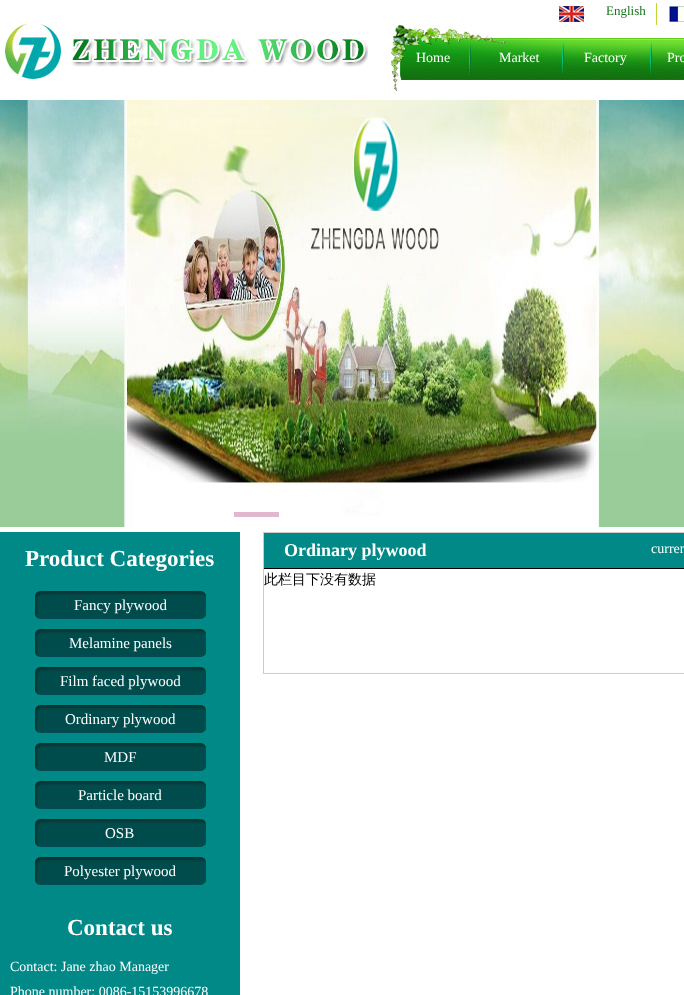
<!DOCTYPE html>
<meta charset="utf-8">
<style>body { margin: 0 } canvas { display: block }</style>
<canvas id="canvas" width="684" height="995"></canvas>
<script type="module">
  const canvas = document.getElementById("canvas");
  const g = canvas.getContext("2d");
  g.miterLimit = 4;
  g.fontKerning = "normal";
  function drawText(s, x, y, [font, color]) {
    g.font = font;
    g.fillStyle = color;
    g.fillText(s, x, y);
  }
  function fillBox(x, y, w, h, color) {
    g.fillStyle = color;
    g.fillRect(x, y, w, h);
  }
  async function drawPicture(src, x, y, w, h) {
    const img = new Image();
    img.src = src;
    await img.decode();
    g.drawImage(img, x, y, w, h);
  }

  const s1 = ["13px Liberation Serif", "#17751B"];
  const s2 = ["14px Liberation Serif", "#FFFFFF"];
  const s3 = ["bold 23px Liberation Serif", "#FFFFFF"];
  const s4 = ["15px Liberation Serif", "#FFFFFF"];
  const s5 = ["bold 18px Liberation Serif", "#FFFFFF"];
  const s6 = ["500 14px WenQuanYi Zen Hei", "#000000"];

  fillBox(0, 0, 684, 995, "#FFFFFF");
  await drawPicture("pic1.png", 559, 6, 25, 16);
  fillBox(656, 3, 1, 22, "#C4D636");
  drawText("English", 606, 15, s1);
  await drawPicture("pic2.png", 669, 6, 15, 16);
  await drawPicture("pic3.png", 5, 23, 363, 56);
  await drawPicture("pic4.png", 391, 25, 293, 66);
  drawText("Home", 416, 62, s2);
  drawText("Market", 499, 62, s2);
  drawText("Factory", 584, 62, s2);
  drawText("Pro", 667, 62, s2);
  await drawPicture("pic5.png", 0, 100, 684, 427);
  fillBox(234, 512, 45, 5, "#E1B7CD");
  fillBox(347, 512, 36, 3, "rgba(255, 255, 255, 0.3)");
  fillBox(0, 532, 240, 463, "#018987");
  drawText("Product Categories", 25, 566, s3);
  await drawPicture("pic6.png", 34, 590, 173, 30);
  drawText("Fancy plywood", 74, 610, s4);
  await drawPicture("pic6.png", 34, 628, 173, 30);
  drawText("Melamine panels", 69, 648, s4);
  await drawPicture("pic6.png", 34, 666, 173, 30);
  drawText("Film faced plywood", 60, 686, s4);
  await drawPicture("pic6.png", 34, 704, 173, 30);
  drawText("Ordinary plywood", 65, 724, s4);
  await drawPicture("pic6.png", 34, 742, 173, 30);
  drawText("MDF", 104, 762, s4);
  await drawPicture("pic6.png", 34, 780, 173, 30);
  drawText("Particle board", 78, 800, s4);
  await drawPicture("pic6.png", 34, 818, 173, 30);
  drawText("OSB", 105, 838, s4);
  await drawPicture("pic6.png", 34, 856, 173, 30);
  drawText("Polyester plywood", 64, 876, s4);
  drawText("Contact us", 67, 935, s3);
  drawText("Contact: Jane zhao Manager", 10, 971, s2);
  drawText("Phone number: 0086-15153996678", 10, 996, s2);
  g.strokeStyle = "#CCCCCC";
  g.strokeRect(263.5, 532.5, 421, 141);
  fillBox(264, 533, 420, 35, "#018987");
  fillBox(264, 568, 420, 1, "#000000");
  drawText("Ordinary plywood", 284, 556, s5);
  drawText("curren", 651, 553, s2);
  drawText("此栏目下没有数据", 264, 584, s6);
</script>
